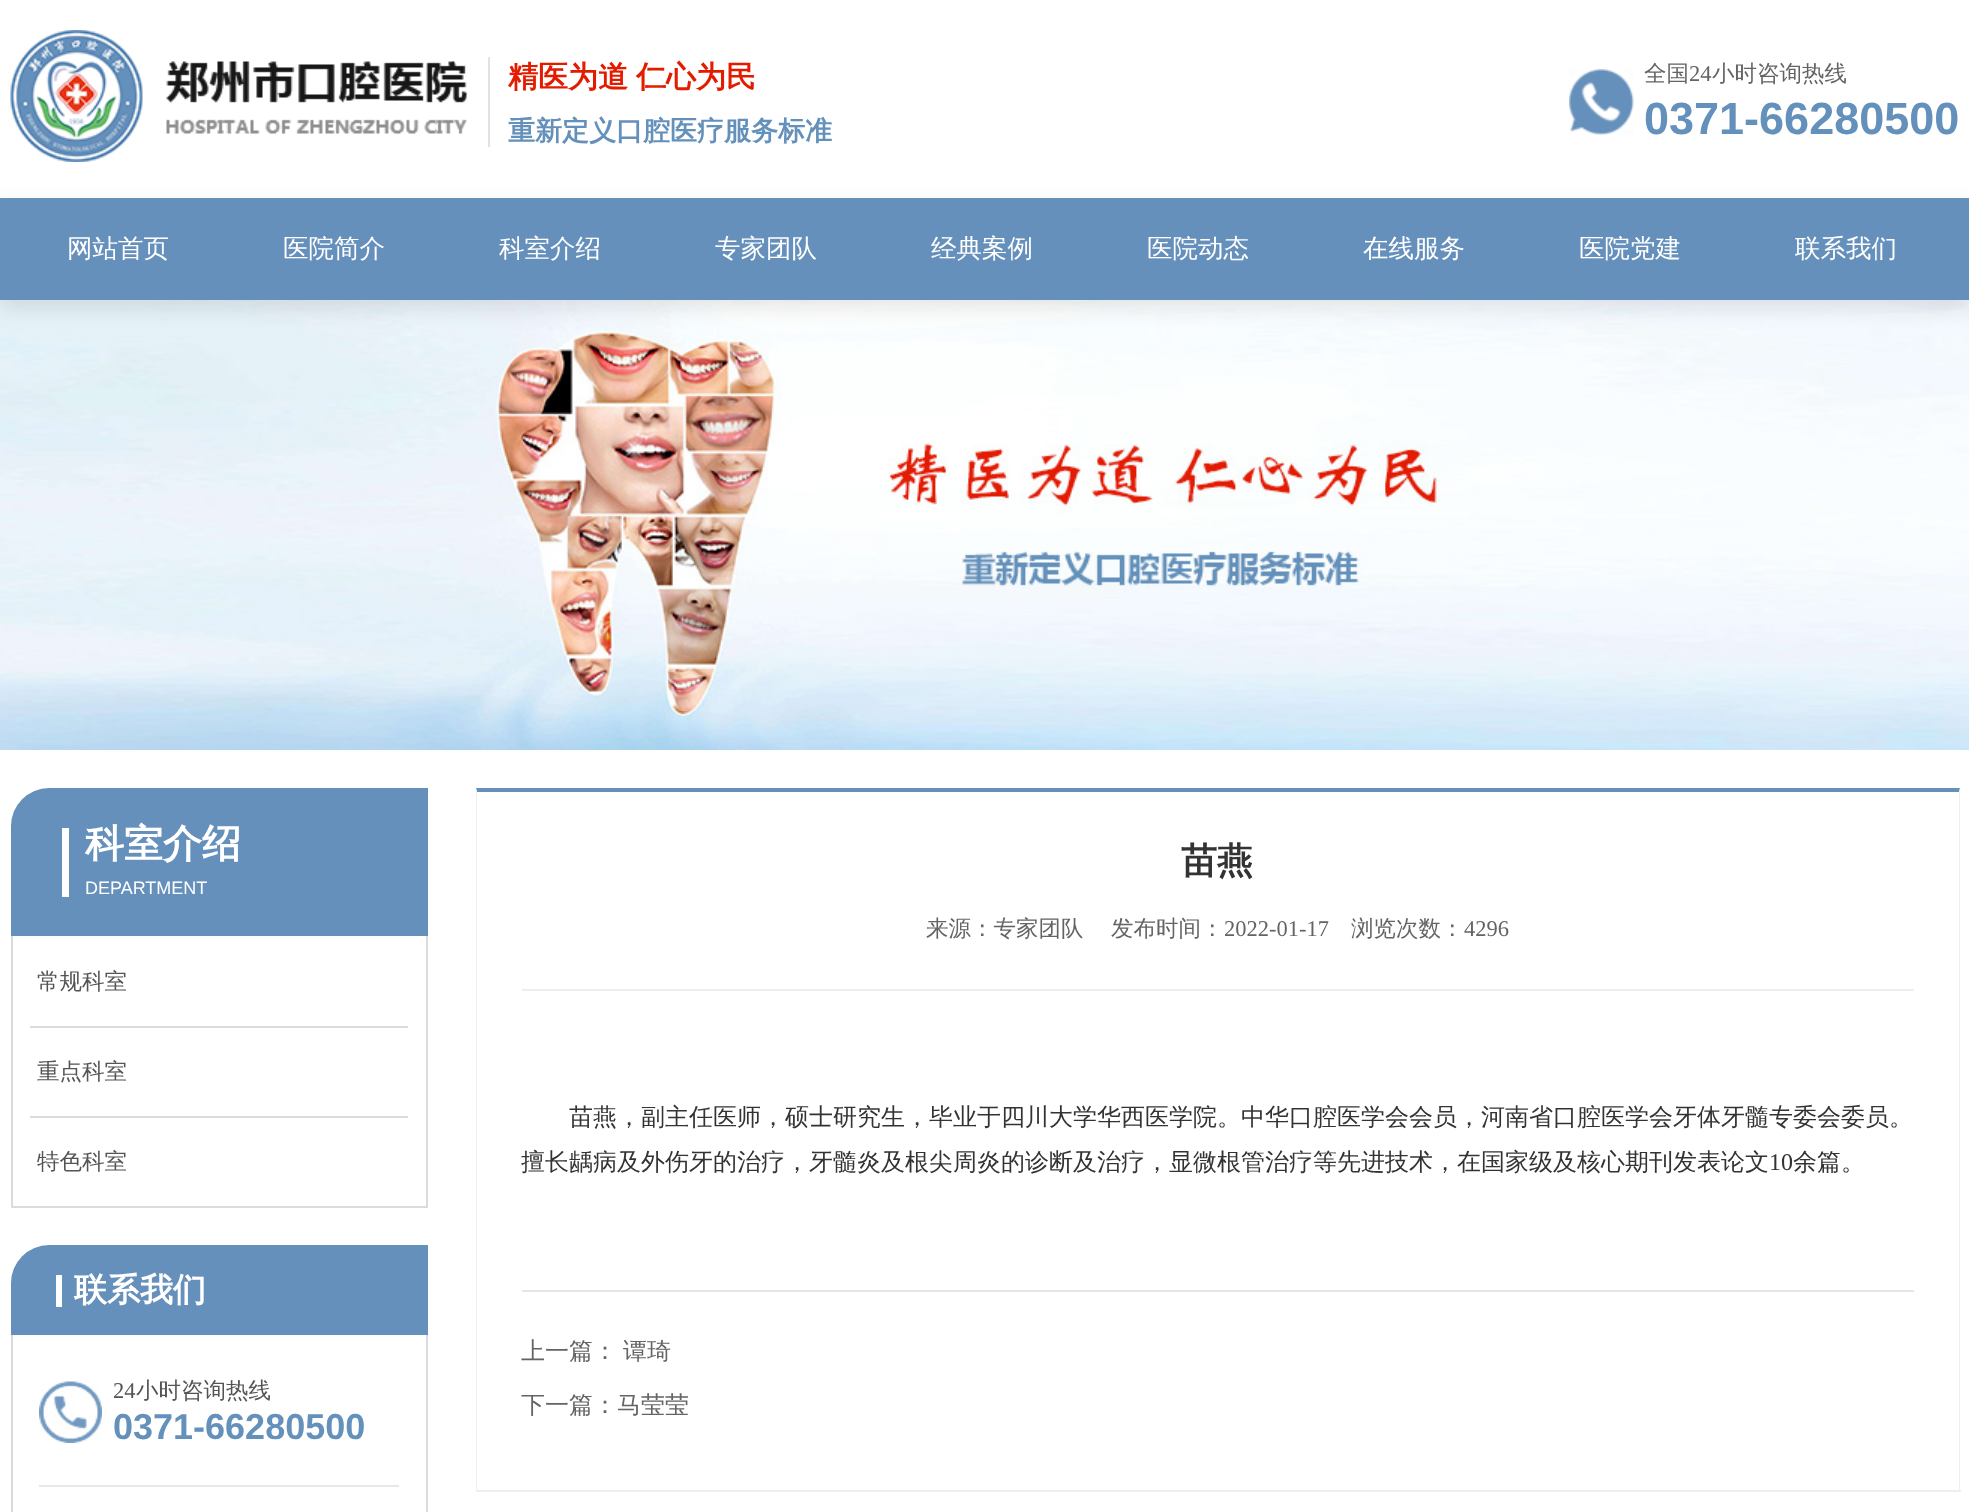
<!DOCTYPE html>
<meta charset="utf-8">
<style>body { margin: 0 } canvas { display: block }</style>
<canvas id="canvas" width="1969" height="1512"></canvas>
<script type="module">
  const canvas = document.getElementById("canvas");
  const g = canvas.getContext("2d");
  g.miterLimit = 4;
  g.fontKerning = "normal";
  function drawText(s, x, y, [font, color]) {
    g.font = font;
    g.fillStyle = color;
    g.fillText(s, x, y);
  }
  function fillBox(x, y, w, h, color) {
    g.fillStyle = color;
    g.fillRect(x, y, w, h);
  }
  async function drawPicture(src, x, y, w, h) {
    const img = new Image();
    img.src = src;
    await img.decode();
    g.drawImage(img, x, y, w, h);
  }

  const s1 = ["bold 30px WenQuanYi Zen Hei", "#E31C00"];
  const s2 = ["bold 27px WenQuanYi Zen Hei", "#6491BB"];
  const s3 = ["500 22.5px WenQuanYi Zen Hei", "#646464"];
  const s4 = ["22.5px Liberation Serif", "#646464"];
  const s5 = ["bold 45px Liberation Sans", "#6491BB"];
  const s6 = ["500 25.5px WenQuanYi Zen Hei", "#FFFFFF"];
  const s7 = ["bold 39px WenQuanYi Zen Hei", "#FFFFFF"];
  const s8 = ["18px Liberation Sans", "#FFFFFF"];
  const s9 = ["500 22.5px WenQuanYi Zen Hei", "#545454"];
  const s10 = ["bold 33px WenQuanYi Zen Hei", "#FFFFFF"];
  const s11 = ["22.5px Liberation Serif", "#545454"];
  const s12 = ["bold 36px Liberation Sans", "#6491BB"];
  const s13 = ["bold 36px WenQuanYi Zen Hei", "#333333"];
  const s14 = ["500 24px WenQuanYi Zen Hei", "#333333"];
  const s15 = ["24px Liberation Serif", "#333333"];
  const s16 = ["500 24px WenQuanYi Zen Hei", "#646464"];

  fillBox(0, 0, 1969, 1512, "#FFFFFF");
  await drawPicture("pic1.png", 10, 30, 458, 132);
  fillBox(488, 57, 2, 90, "#E2E2E2");
  g.wordSpacing = "-1px";
  drawText("精医为道 仁心为民", 508, 87, s1);
  g.wordSpacing = "0px";
  drawText("重新定义口腔医疗服务标准", 508, 140, s2);
  await drawPicture("pic2.png", 1569, 69, 65, 66);
  drawText("全国", 1644, 81, s3);
  drawText("24", 1689, 81, s4);
  drawText("小时咨询热线", 1712, 81, s3);
  drawText("0371-66280500", 1644, 134, s5);
  await drawPicture("pic3.png", 0, 300, 1969, 450);
  g.fillStyle = "rgba(0, 0, 0, 0.1)";
  g.filter = "blur(11px)";
  g.beginPath();
  g.rect(0, 206, 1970, 102);
  g.fill();
  g.filter = "none";
  fillBox(0, 198, 1969, 102, "#6590BB");
  drawText("网站首页", 67, 257, s6);
  drawText("医院简介", 283, 257, s6);
  drawText("科室介绍", 499, 257, s6);
  drawText("专家团队", 715, 257, s6);
  drawText("经典案例", 931, 257, s6);
  drawText("医院动态", 1147, 257, s6);
  drawText("在线服务", 1363, 257, s6);
  drawText("医院党建", 1579, 257, s6);
  drawText("联系我们", 1795, 257, s6);
  g.fillStyle = "#6590BB";
  g.beginPath();
  g.roundRect(11, 788, 417, 148, [38, 0, 0, 0]);
  g.fill();
  fillBox(62, 828, 7, 69, "#FFFFFF");
  drawText("科室介绍", 85, 857, s7);
  drawText("DEPARTMENT", 85, 894, s8);
  fillBox(426, 936, 2, 272, "#DBDBDB");
  fillBox(11, 1206, 417, 2, "#DBDBDB");
  fillBox(11, 936, 2, 272, "#DBDBDB");
  fillBox(30, 1026, 378, 2, "#DBDBDB");
  drawText("常规科室", 37, 989, s9);
  fillBox(30, 1116, 378, 2, "#DBDBDB");
  drawText("重点科室", 37, 1079, s9);
  drawText("特色科室", 37, 1169, s9);
  g.fillStyle = "#6590BB";
  g.beginPath();
  g.roundRect(11, 1245, 417, 90, [38, 0, 0, 0]);
  g.fill();
  fillBox(56, 1275, 6, 32, "#FFFFFF");
  drawText("联系我们", 74, 1301, s10);
  fillBox(426, 1335, 2, 177, "#DBDBDB");
  fillBox(11, 1335, 2, 177, "#DBDBDB");
  await drawPicture("pic4.png", 39, 1381, 63, 62);
  fillBox(39, 1485, 360, 2, "#E8E8E8");
  drawText("24", 113, 1398, s11);
  drawText("小时咨询热线", 136, 1398, s9);
  drawText("0371-66280500", 113, 1439, s12);
  g.fillStyle = "#6590BB";
  g.beginPath();
  g.moveTo(476, 788);
  g.lineTo(1960, 788);
  g.lineTo(1959, 792);
  g.lineTo(477, 792);
  g.closePath();
  g.fill();
  g.fillStyle = "#EEEEEE";
  g.beginPath();
  g.moveTo(1960, 788);
  g.lineTo(1960, 1491);
  g.lineTo(1959, 1490);
  g.lineTo(1959, 792);
  g.closePath();
  g.fill();
  fillBox(476, 1490, 1485, 2, "#EEEEEE");
  g.beginPath();
  g.moveTo(476, 1491);
  g.lineTo(476, 788);
  g.lineTo(477, 792);
  g.lineTo(477, 1490);
  g.closePath();
  g.fill();
  drawText("苗燕", 1181, 873, s13);
  fillBox(522, 989, 1392, 2, "#EEEEEE");
  drawText("来源：专家团队", 926, 936, s3);
  drawText("发布时间：", 1111, 936, s3);
  drawText("2022-01-17", 1224, 936, s4);
  drawText("浏览次数：", 1351, 936, s3);
  drawText("4296", 1464, 936, s4);
  drawText("苗燕，副主任医师，硕士研究生，毕业于四川大学华西医学院。中华口腔医学会会员，河南省口腔医学会牙体牙髓专委会委员。", 569, 1125, s14);
  drawText("擅长龋病及外伤牙的治疗，牙髓炎及根尖周炎的诊断及治疗，显微根管治疗等先进技术，在国家级及核心期刊发表论文", 521, 1170, s14);
  drawText("10", 1769, 1170, s15);
  drawText("余篇。", 1793, 1170, s14);
  fillBox(522, 1290, 1392, 2, "#E5E5E5");
  drawText("上一篇：", 521, 1359, s16);
  drawText("谭琦", 623, 1359, s16);
  drawText("下一篇：马莹莹", 521, 1413, s16);
</script>
